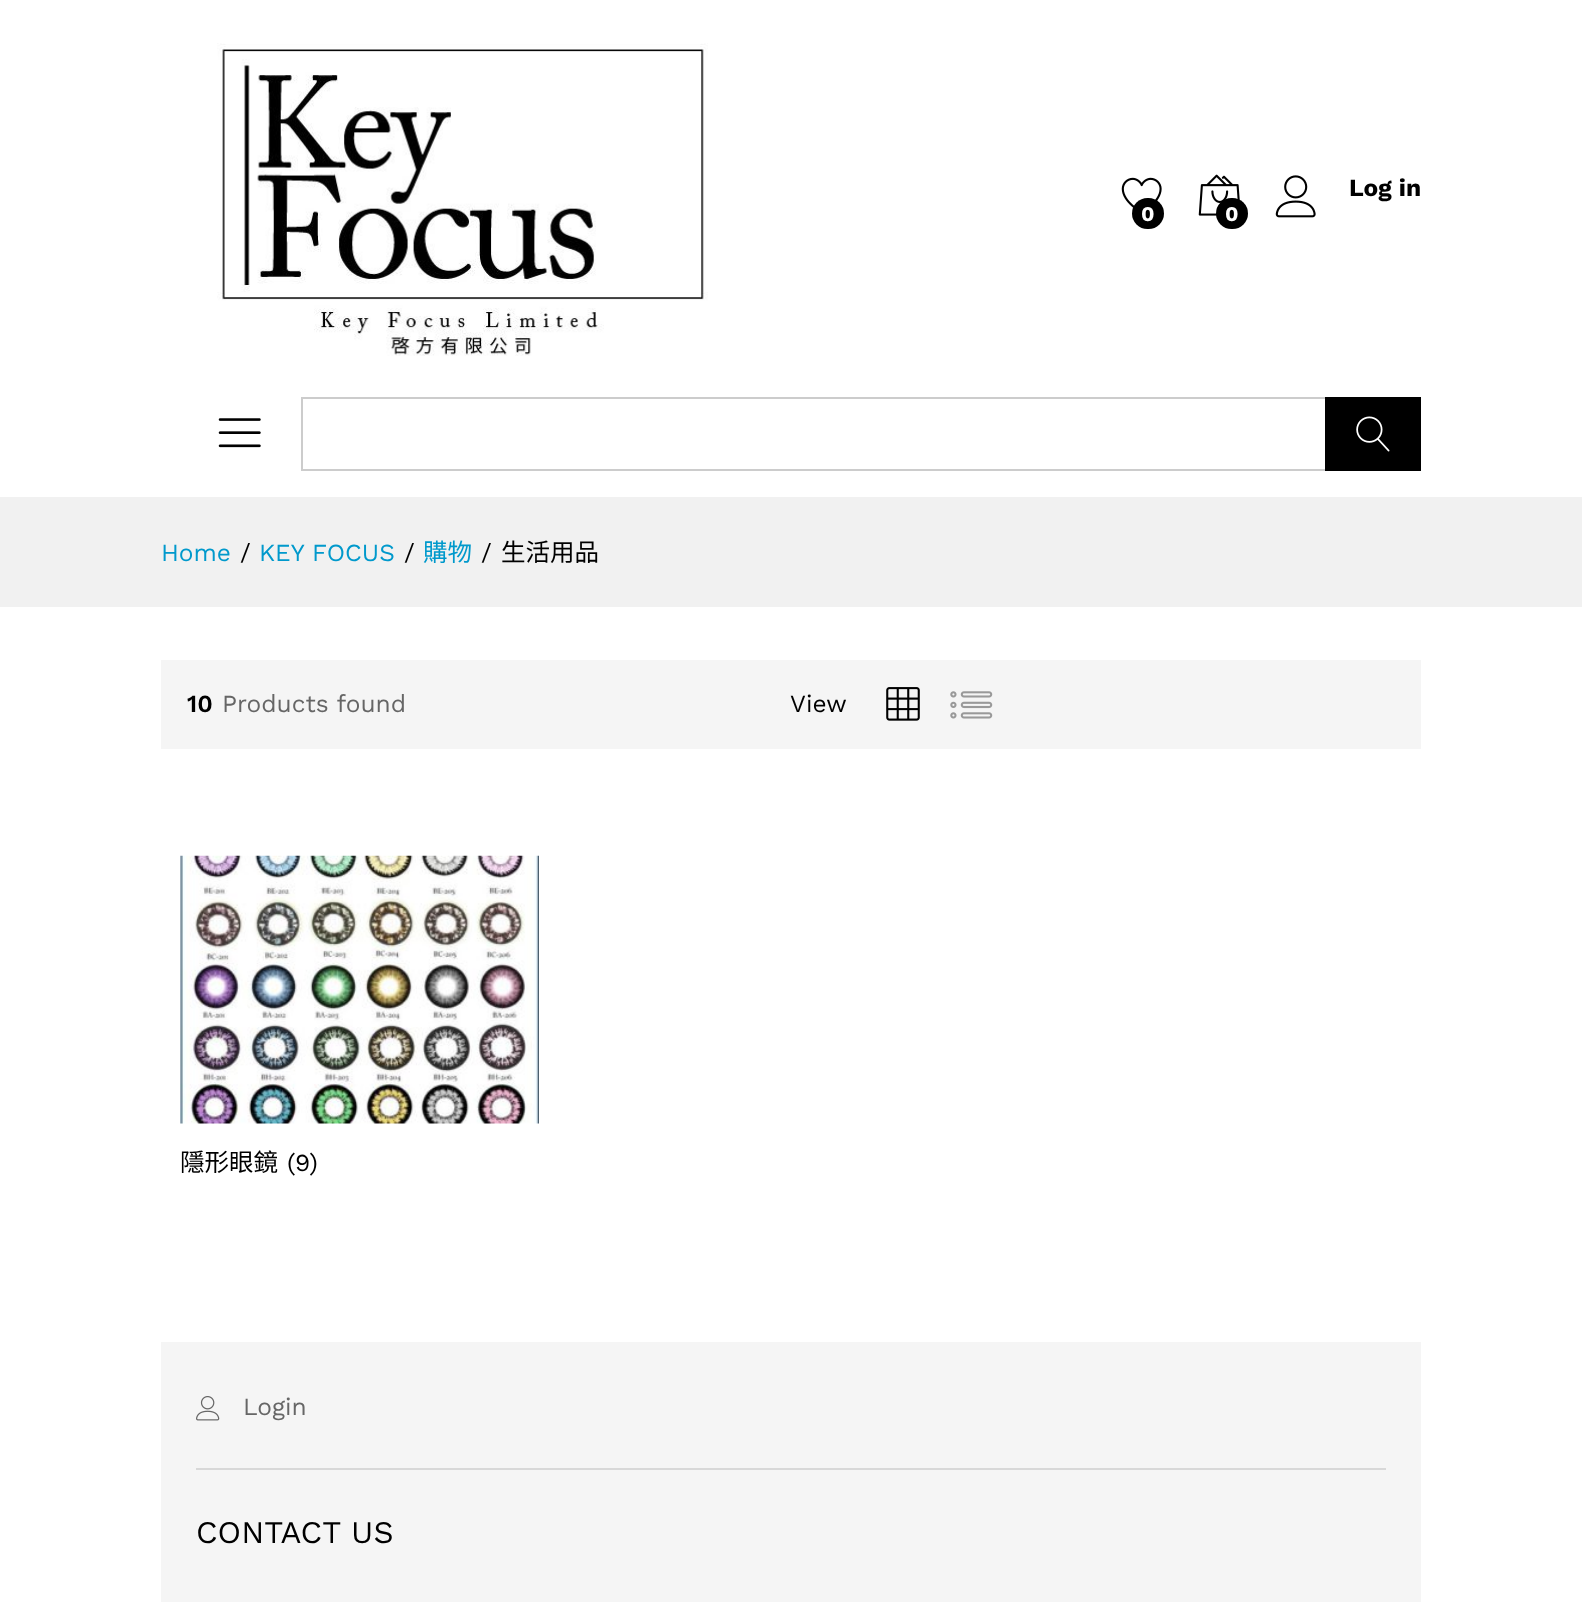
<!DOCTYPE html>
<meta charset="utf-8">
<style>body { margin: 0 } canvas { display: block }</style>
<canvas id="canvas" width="1582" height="1602"></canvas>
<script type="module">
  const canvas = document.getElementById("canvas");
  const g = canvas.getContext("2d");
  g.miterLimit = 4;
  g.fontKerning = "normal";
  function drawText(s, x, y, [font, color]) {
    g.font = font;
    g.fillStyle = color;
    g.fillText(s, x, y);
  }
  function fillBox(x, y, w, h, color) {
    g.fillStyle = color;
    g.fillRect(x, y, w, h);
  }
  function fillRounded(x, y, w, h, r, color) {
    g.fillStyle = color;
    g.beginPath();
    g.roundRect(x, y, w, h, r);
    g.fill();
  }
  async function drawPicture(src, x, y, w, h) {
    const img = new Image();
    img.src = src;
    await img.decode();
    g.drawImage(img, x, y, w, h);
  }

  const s1 = ["bold 24.5px Work Sans", "#000000"];
  const s2 = ["bold 21px Work Sans", "#FFFFFF"];
  const s3 = ["24.5px Work Sans", "#0099CC"];
  const s4 = ["24.5px Work Sans", "#000000"];
  const s5 = ["24.5px Noto Sans CJK TC", "#0099CC"];
  const s6 = ["24.5px Noto Sans CJK TC", "#000000"];
  const s7 = ["600 24.5px Work Sans", "#000000"];
  const s8 = ["24.5px Work Sans", "#666666"];
  const s9 = ["31.5px Work Sans", "#000000"];

  fillBox(0, 0, 1582, 1602, "#FFFFFF");
  await drawPicture("pic1.png", 217, 43, 491, 313);
  await drawPicture("pic2.png", 1275, 175, 41, 43);
  drawText("Log in", 1349, 196, s1);
  await drawPicture("pic3.png", 1121, 177, 41, 31);
  fillRounded(1132, 198, 32, 31, 15.5, "#000000");
  drawText("0", 1141, 221, s2);
  await drawPicture("pic4.png", 1198, 174, 42, 42);
  fillRounded(1216, 198, 32, 31, 15.5, "#000000");
  drawText("0", 1225, 221, s2);
  await drawPicture("pic5.png", 218, 418, 43, 30);
  fillBox(301, 397, 1024, 2, "#CCCCCC");
  fillBox(301, 469, 1024, 2, "#CCCCCC");
  fillBox(301, 397, 2, 74, "#CCCCCC");
  fillBox(1325, 397, 96, 74, "#000000");
  await drawPicture("pic6.png", 1356, 416, 34, 36);
  fillBox(0, 497, 1582, 110, "#F1F1F1");
  drawText("Home", 161, 561, s3);
  drawText("/", 240, 561, s4);
  drawText("KEY FOCUS", 259, 561, s3);
  drawText("/", 404, 561, s4);
  drawText("購物", 423, 561, s5);
  drawText("/", 481, 561, s4);
  drawText("生活用品", 501, 561, s6);
  fillBox(161, 660, 1260, 89, "#F5F5F5");
  drawText("10", 187, 712, s7);
  drawText("Products found", 222, 712, s8);
  drawText("View", 790, 712, s4);
  await drawPicture("pic7.png", 886, 687, 34, 34);
  await drawPicture("pic8.png", 950, 691, 43, 28);
  await drawPicture("pic9.png", 180, 855, 359, 269);
  drawText("隱形眼鏡", 180, 1171, s6);
  drawText("(9)", 287, 1171, s4);
  fillBox(161, 1342, 1260, 260, "#F5F5F5");
  await drawPicture("pic10.png", 196, 1396, 24, 25);
  drawText("Login", 243, 1415, s8);
  fillBox(196, 1468, 1190, 2, "#D8D8D8");
  drawText("CONTACT US", 196, 1543, s9);
</script>
